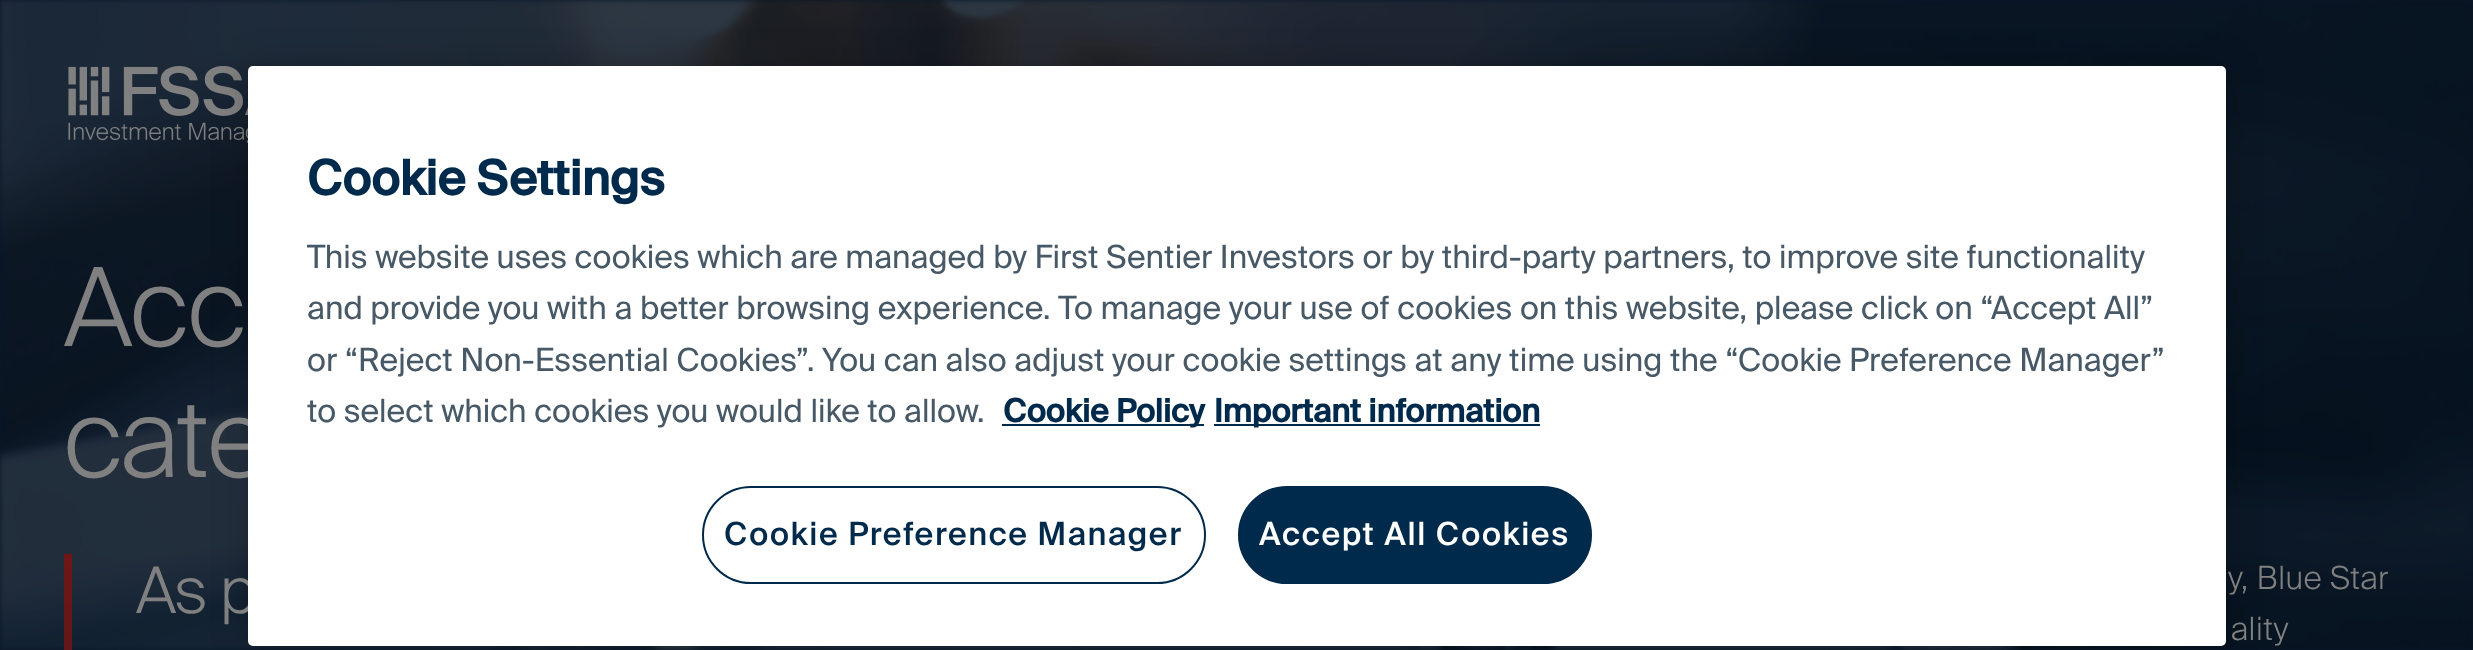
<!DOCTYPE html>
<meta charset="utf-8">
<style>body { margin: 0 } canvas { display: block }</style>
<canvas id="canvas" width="2473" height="650"></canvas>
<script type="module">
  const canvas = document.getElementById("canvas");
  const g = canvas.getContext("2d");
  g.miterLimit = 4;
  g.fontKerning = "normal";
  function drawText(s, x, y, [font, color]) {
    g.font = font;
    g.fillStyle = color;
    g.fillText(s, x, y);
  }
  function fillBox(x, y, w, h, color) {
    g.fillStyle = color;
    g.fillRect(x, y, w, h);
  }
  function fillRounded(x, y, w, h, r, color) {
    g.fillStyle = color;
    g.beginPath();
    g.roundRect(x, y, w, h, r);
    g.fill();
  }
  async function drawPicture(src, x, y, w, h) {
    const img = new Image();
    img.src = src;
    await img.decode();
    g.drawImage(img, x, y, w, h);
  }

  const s1 = ["300 109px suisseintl", "#808080"];
  const s2 = ["300 64px suisseintl", "#808080"];
  const s3 = ["bold 48px suisseintl", "#002A4B"];
  const s4 = ["32px suisseintl", "#475966"];
  const s5 = ["bold 32px suisseintl", "#002A4B"];
  const s6 = ["500 32px suisseintl", "#002A4B"];
  const s7 = ["500 32px suisseintl", "#FFFFFF"];
  const s8 = ["300 32px suisseintl", "#808080"];

  fillBox(0, 0, 2473, 650, "#081729");
  await drawPicture("pic1.png", 0, 0, 2473, 650);
  await drawPicture("pic2.png", 68, 66, 180, 77);
  g.fillStyle = "rgba(0, 0, 0, 0.2)";
  g.filter = "blur(18px)";
  g.beginPath();
  g.roundRect(248, 66, 1978, 580, 5);
  g.fill();
  g.filter = "none";
  g.letterSpacing = "-1.5px";
  drawText("cate", 64, 477, s1);
  drawText("As p", 136, 613, s2);
  fillRounded(248, 66, 1978, 580, 5, "#FFFFFF");
  g.letterSpacing = "0px";
  drawText("Cookie Settings", 307, 195, s3);
  drawText("This website uses cookies which are managed by First Sentier Investors or by third-party partners, to improve site functionality", 307, 268, s4);
  drawText("and provide you with a better browsing experience. To manage your use of cookies on this website, please click on “Accept All”", 307, 319, s4);
  drawText("or “Reject Non-Essential Cookies”. You can also adjust your cookie settings at any time using the “Cookie Preference Manager”", 307, 371, s4);
  drawText("to select which cookies you would like to allow.", 307, 422, s4);
  fillBox(1002, 424, 202, 2, "#002A4B");
  drawText("Cookie Policy", 1003, 422, s5);
  fillBox(1214, 424, 326, 2, "#002A4B");
  drawText("Important information", 1214, 422, s5);
  g.beginPath();
  g.roundRect(703, 487, 502, 96, 48);
  g.strokeStyle = "#002A4B";
  g.lineWidth = 2;
  g.stroke();
  g.letterSpacing = "1.6px";
  drawText("Cookie Preference Manager", 724, 545, s6);
  g.beginPath();
  g.roundRect(1239, 487, 352, 96, 48);
  g.fill();
  g.stroke();
  drawText("Accept All Cookies", 1259, 545, s7);
  g.letterSpacing = "-1.5px";
  drawText("Acc", 64, 346, s1);
  await drawPicture("pic3.png", 64, 554, 8, 96);
  g.letterSpacing = "0.6px";
  drawText("y, Blue Star", 2228, 589, s8);
  drawText("ality", 2231, 640, s8);
</script>
